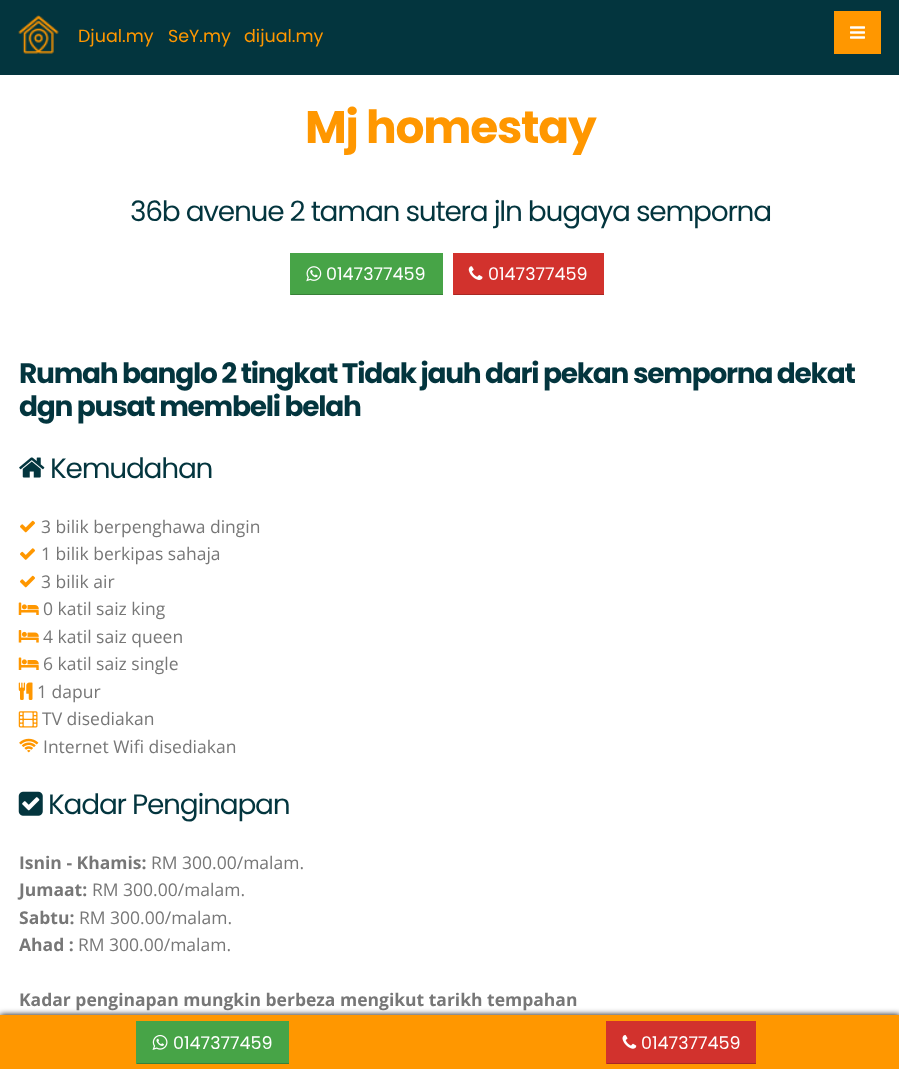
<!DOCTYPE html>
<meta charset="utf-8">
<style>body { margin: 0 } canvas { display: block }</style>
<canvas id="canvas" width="899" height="1069"></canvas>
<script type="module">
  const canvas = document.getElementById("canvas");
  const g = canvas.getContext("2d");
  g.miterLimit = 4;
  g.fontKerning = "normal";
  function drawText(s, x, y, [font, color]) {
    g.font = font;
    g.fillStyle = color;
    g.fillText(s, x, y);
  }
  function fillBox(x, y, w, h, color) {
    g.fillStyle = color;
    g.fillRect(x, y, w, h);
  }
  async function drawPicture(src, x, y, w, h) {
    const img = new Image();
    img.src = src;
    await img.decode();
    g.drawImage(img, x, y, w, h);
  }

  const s1 = ["17.5px Poppins", "#FF9700"];
  const s2 = ["bold 45.5px Poppins", "#FF9700"];
  const s3 = ["28px Poppins", "#03353E"];
  const s4 = ["17.5px Poppins", "#FFFFFF"];
  const s5 = ["bold 28px Poppins", "#03353E"];
  const s6 = ["17.5px Open Sans", "#777777"];
  const s7 = ["bold 17.5px Open Sans", "#777777"];

  fillBox(0, 0, 899, 1069, "#FFFFFF");
  fillBox(0, 0, 899, 75, "#03353E");
  await drawPicture("pic1.png", 18, 15, 41, 39);
  drawText("Djual.my", 78, 42, s1);
  drawText("SeY.my", 168, 42, s1);
  drawText("dijual.my", 244, 42, s1);
  fillBox(834, 11, 47, 43, "#FF9700");
  await drawPicture("pic2.png", 850, 26, 15, 13);
  g.letterSpacing = "-1.25px";
  drawText("Mj homestay", 305, 143, s2);
  drawText("36b avenue 2 taman sutera jln bugaya semporna", 130, 221, s3);
  fillBox(291, 253, 152, 41, "#47A447");
  fillBox(290, 294, 153, 1, "#388038");
  fillBox(290, 253, 1, 42, "#47A447");
  await drawPicture("pic3.png", 306, 266, 16, 16);
  g.letterSpacing = "0px";
  drawText("0147377459", 326, 280, s4);
  fillBox(454, 253, 150, 41, "#D2322D");
  fillBox(453, 294, 151, 1, "#A82824");
  fillBox(453, 253, 1, 42, "#D2322D");
  await drawPicture("pic4.png", 468, 266, 15, 14);
  drawText("0147377459", 488, 280, s4);
  g.letterSpacing = "-1.25px";
  drawText("Rumah banglo 2 tingkat Tidak jauh dari pekan semporna dekat", 19, 383, s5);
  drawText("dgn pusat membeli belah", 19, 416, s5);
  await drawPicture("pic5.png", 19, 457, 26, 21);
  drawText("Kemudahan", 50, 478, s3);
  await drawPicture("pic6.png", 20, 520, 15, 13);
  g.letterSpacing = "0px";
  drawText("3 bilik berpenghawa dingin", 41, 533, s6);
  await drawPicture("pic7.png", 20, 548, 15, 12);
  drawText("1 bilik berkipas sahaja", 41, 560, s6);
  await drawPicture("pic6.png", 20, 575, 15, 13);
  drawText("3 bilik air", 41, 588, s6);
  await drawPicture("pic8.png", 18, 602, 21, 13);
  drawText("0 katil saiz king", 43, 615, s6);
  await drawPicture("pic9.png", 18, 630, 21, 13);
  drawText("4 katil saiz queen", 43, 643, s6);
  await drawPicture("pic8.png", 18, 657, 21, 13);
  drawText("6 katil saiz single", 43, 670, s6);
  await drawPicture("pic10.png", 18, 682, 15, 18);
  drawText("1 dapur", 37, 698, s6);
  await drawPicture("pic11.png", 18, 711, 20, 17);
  drawText("TV disediakan", 42, 725, s6);
  await drawPicture("pic12.png", 19, 738, 20, 15);
  drawText("Internet Wifi disediakan", 43, 753, s6);
  await drawPicture("pic13.png", 18, 791, 25, 25);
  g.letterSpacing = "-1.25px";
  drawText("Kadar Penginapan", 48, 814, s3);
  g.letterSpacing = "0px";
  drawText("Isnin - Khamis:", 19, 869, s7);
  drawText("RM 300.00/malam.", 151, 869, s6);
  drawText("Jumaat:", 19, 896, s7);
  drawText("RM 300.00/malam.", 92, 896, s6);
  drawText("Sabtu:", 19, 924, s7);
  drawText("RM 300.00/malam.", 79, 924, s6);
  drawText("Ahad :", 19, 951, s7);
  drawText("RM 300.00/malam.", 78, 951, s6);
  drawText("Kadar penginapan mungkin berbeza mengikut tarikh tempahan", 19, 1006, s7);
  g.fillStyle = "#000000";
  g.filter = "blur(3px)";
  g.beginPath();
  g.rect(0, 1015, 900, 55);
  g.fill();
  g.filter = "none";
  fillBox(0, 1015, 899, 54, "#FF9700");
  fillBox(137, 1021, 152, 42, "#47A447");
  fillBox(136, 1063, 153, 1, "#388038");
  fillBox(136, 1021, 1, 43, "#47A447");
  await drawPicture("pic14.png", 152, 1034, 16, 16);
  drawText("0147377459", 173, 1049, s4);
  fillBox(607, 1021, 149, 42, "#D2322D");
  fillBox(606, 1063, 150, 1, "#A82824");
  fillBox(606, 1021, 1, 43, "#D2322D");
  await drawPicture("pic15.png", 622, 1035, 15, 14);
  drawText("0147377459", 641, 1049, s4);
</script>
